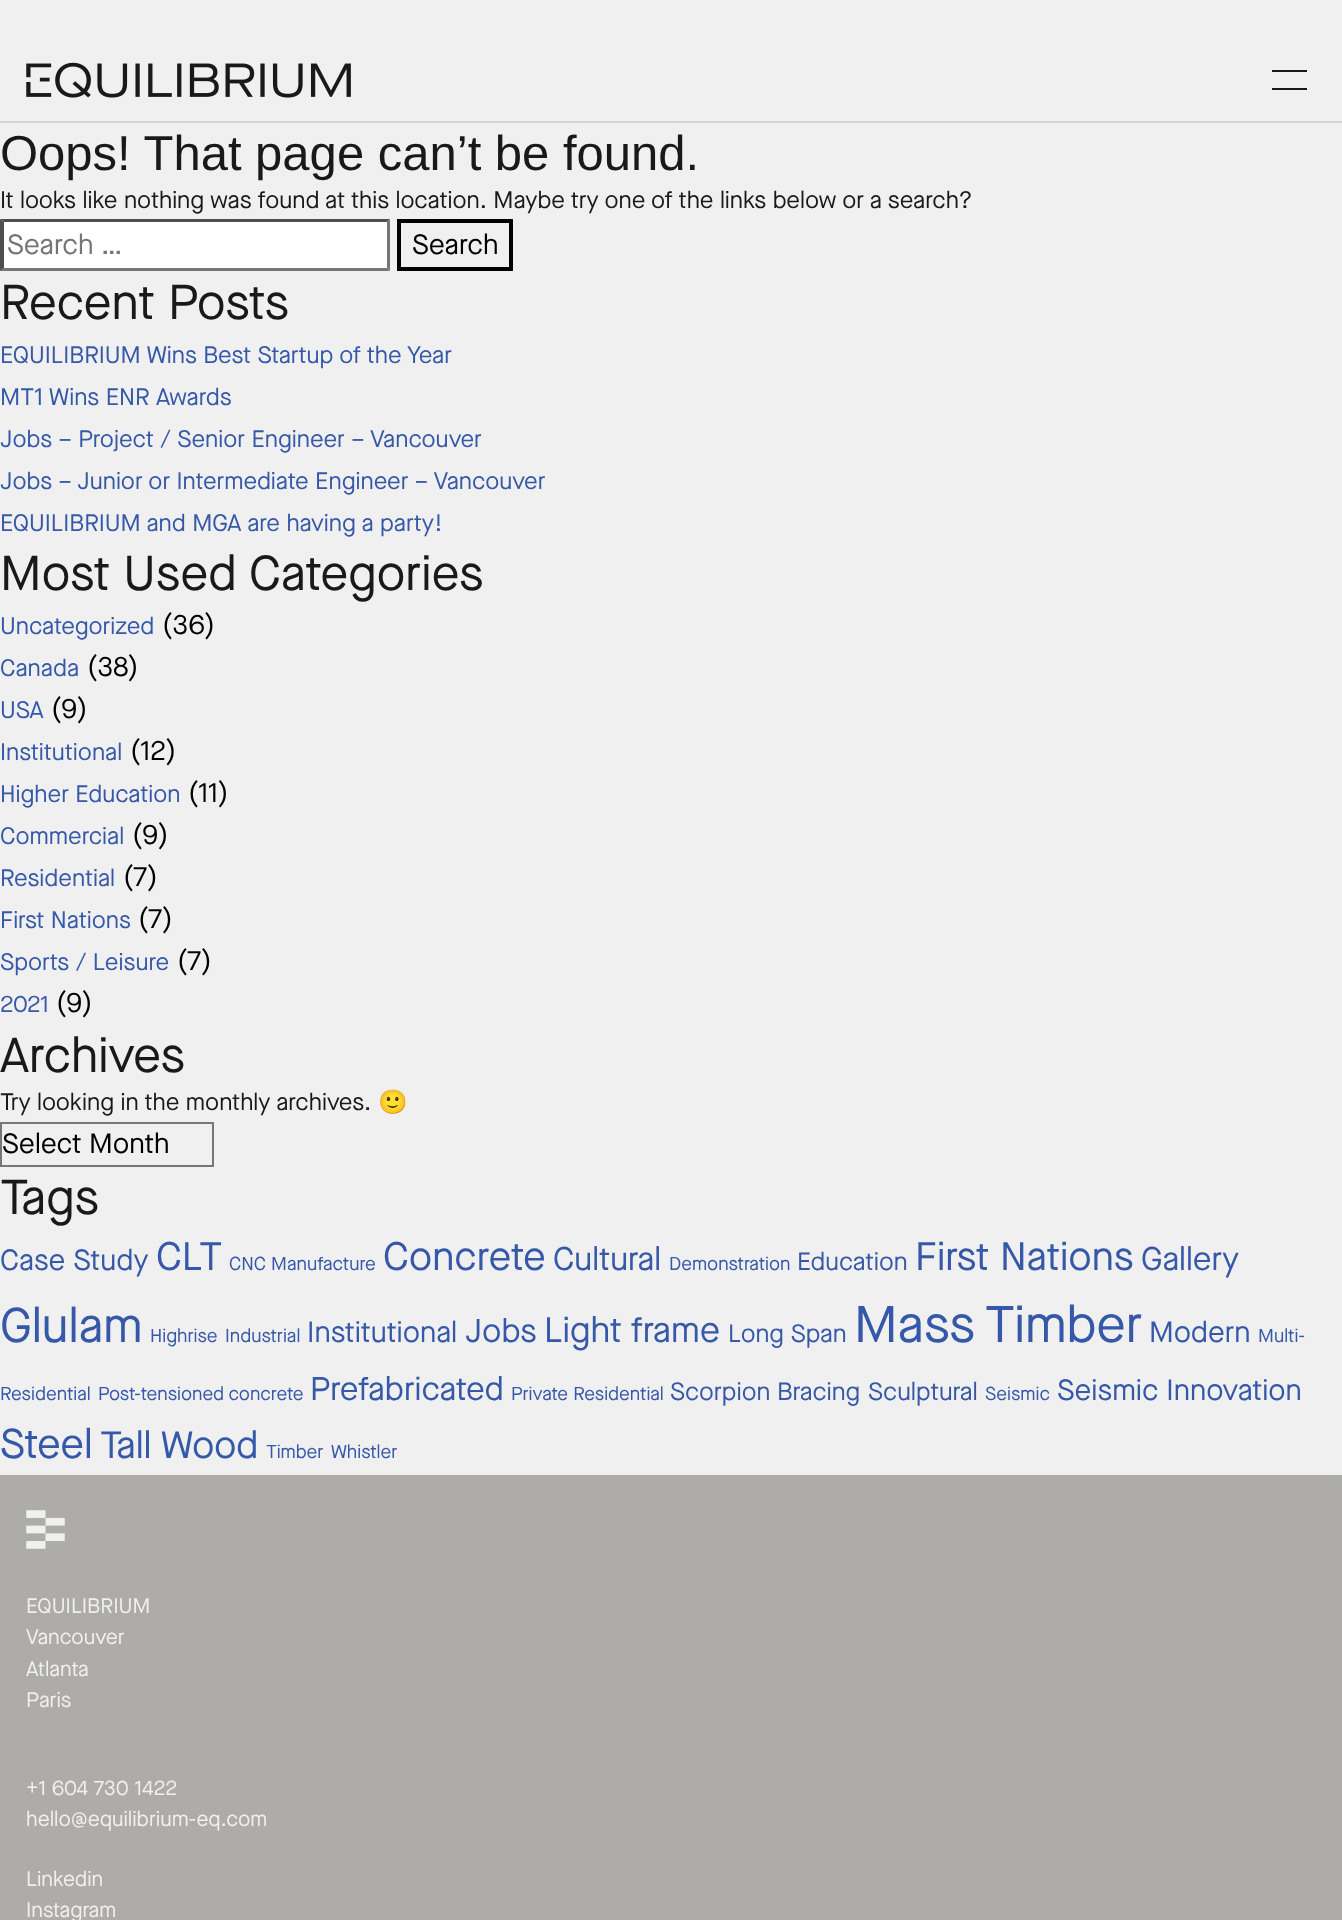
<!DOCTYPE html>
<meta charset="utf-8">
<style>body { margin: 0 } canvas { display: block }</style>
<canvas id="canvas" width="1342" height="1920"></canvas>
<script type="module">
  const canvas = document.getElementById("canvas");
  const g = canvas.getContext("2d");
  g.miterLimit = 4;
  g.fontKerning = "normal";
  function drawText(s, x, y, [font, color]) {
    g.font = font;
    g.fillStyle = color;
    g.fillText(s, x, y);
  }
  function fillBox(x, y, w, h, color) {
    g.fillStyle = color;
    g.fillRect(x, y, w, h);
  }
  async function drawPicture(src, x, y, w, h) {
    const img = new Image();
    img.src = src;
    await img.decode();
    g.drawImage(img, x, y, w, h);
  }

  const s1 = ["49px Liberation Sans", "#191A17"];
  const s2 = ["23.8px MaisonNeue", "#191A17"];
  const s3 = ["28px MaisonNeue", "#757575"];
  const s4 = ["28px MaisonNeue", "#000000"];
  const s5 = ["49px MaisonNeue", "#191A17"];
  const s6 = ["23.8px MaisonNeue", "#3658A8"];
  const s7 = ["23.8px Noto Color Emoji", "#191A17"];
  const s8 = ["29.25px MaisonNeue", "#3658A8"];
  const s9 = ["39.75px MaisonNeue", "#3658A8"];
  const s10 = ["18.75px MaisonNeue", "#3658A8"];
  const s11 = ["32.75px MaisonNeue", "#3658A8"];
  const s12 = ["25px MaisonNeue", "#3658A8"];
  const s13 = ["48.5px MaisonNeue", "#3658A8"];
  const s14 = ["35.5px MaisonNeue", "#3658A8"];
  const s15 = ["51.5px MaisonNeue", "#3658A8"];
  const s16 = ["41.5px MaisonNeue", "#3658A8"];
  const s17 = ["38px MaisonNeue", "#3658A8"];
  const s18 = ["21px MaisonNeue", "#F0F0F0"];

  fillBox(0, 0, 1342, 1920, "#F0F0F0");
  fillBox(0, 121, 1342, 2, "#D6D3D0");
  await drawPicture("pic1.png", 26, 62, 325, 36);
  fillBox(1272, 70, 35, 2, "#191A17");
  fillBox(1272, 88, 35, 2, "#191A17");
  drawText("Oops! That page can’t be found.", 0, 170, s1);
  drawText("It looks like nothing was found at this location. Maybe try one of the links below or a search?", 0, 208, s2);
  fillBox(0, 219, 390, 52, "#FFFFFF");
  g.fillStyle = "#4F4F4F";
  g.beginPath();
  g.moveTo(0, 219);
  g.lineTo(390, 219);
  g.lineTo(387, 222);
  g.lineTo(4, 222);
  g.closePath();
  g.fill();
  g.fillStyle = "#767676";
  g.beginPath();
  g.moveTo(390, 219);
  g.lineTo(390, 271);
  g.lineTo(387, 268);
  g.lineTo(387, 222);
  g.closePath();
  g.fill();
  g.beginPath();
  g.moveTo(390, 271);
  g.lineTo(0, 271);
  g.lineTo(4, 268);
  g.lineTo(387, 268);
  g.closePath();
  g.fill();
  g.fillStyle = "#4F4F4F";
  g.beginPath();
  g.moveTo(0, 271);
  g.lineTo(0, 219);
  g.lineTo(4, 222);
  g.lineTo(4, 268);
  g.closePath();
  g.fill();
  drawText("Search …", 7, 254, s3);
  g.strokeStyle = "#000000";
  g.lineWidth = 4;
  g.strokeRect(399, 221, 112, 48);
  drawText("Search", 412, 254, s4);
  drawText("Recent Posts", 0, 319, s5);
  drawText("EQUILIBRIUM Wins Best Startup of the Year", 0, 363, s6);
  drawText("MT1 Wins ENR Awards", 0, 405, s6);
  drawText("Jobs – Project / Senior Engineer – Vancouver", 0, 447, s6);
  drawText("Jobs – Junior or Intermediate Engineer – Vancouver", 0, 489, s6);
  drawText("EQUILIBRIUM and MGA are having a party!", 0, 531, s6);
  drawText("Most Used Categories", 0, 590, s5);
  drawText("Uncategorized", 0, 634, s6);
  drawText("(36)", 162, 634, s4);
  drawText("Canada", 0, 676, s6);
  drawText("(38)", 87, 676, s4);
  drawText("USA", 0, 718, s6);
  drawText("(9)", 51, 718, s4);
  drawText("Institutional", 0, 760, s6);
  drawText("(12)", 130, 760, s4);
  drawText("Higher Education", 0, 802, s6);
  drawText("(11)", 188, 802, s4);
  drawText("Commercial", 0, 844, s6);
  drawText("(9)", 132, 844, s4);
  drawText("Residential", 0, 886, s6);
  drawText("(7)", 123, 886, s4);
  drawText("First Nations", 0, 928, s6);
  drawText("(7)", 138, 928, s4);
  drawText("Sports / Leisure", 0, 970, s6);
  drawText("(7)", 177, 970, s4);
  drawText("2021", 0, 1012, s6);
  drawText("(9)", 56, 1012, s4);
  drawText("Archives", 0, 1072, s5);
  drawText("Try looking in the monthly archives.", 0, 1110, s2);
  drawText("🙂", 378, 1110, s7);
  g.strokeStyle = "#767676";
  g.lineWidth = 2;
  g.strokeRect(1, 1123, 212, 43);
  drawText("Select Month", 2, 1153, s4);
  drawText("Tags", 0, 1214, s5);
  drawText("Case Study", 0, 1270, s8);
  drawText("CLT", 156, 1270, s9);
  drawText("CNC Manufacture", 229, 1270, s10);
  drawText("Concrete", 383, 1270, s9);
  drawText("Cultural", 553, 1270, s11);
  drawText("Demonstration", 669, 1270, s10);
  drawText("Education", 797, 1270, s12);
  drawText("First Nations", 915, 1270, s9);
  drawText("Gallery", 1141, 1270, s11);
  drawText("Glulam", 0, 1342, s13);
  drawText("Highrise", 150, 1342, s10);
  drawText("Industrial", 225, 1342, s10);
  drawText("Institutional", 307, 1342, s8);
  drawText("Jobs", 465, 1342, s11);
  drawText("Light frame", 544, 1342, s14);
  drawText("Long Span", 728, 1342, s12);
  drawText("Mass Timber", 854, 1342, s15);
  drawText("Modern", 1149, 1342, s8);
  drawText("Multi-", 1258, 1342, s10);
  drawText("Residential", 0, 1400, s10);
  drawText("Post-tensioned concrete", 98, 1400, s10);
  drawText("Prefabricated", 310, 1400, s11);
  drawText("Private Residential", 511, 1400, s10);
  drawText("Scorpion Bracing", 670, 1400, s12);
  drawText("Sculptural", 868, 1400, s12);
  drawText("Seismic", 985, 1400, s10);
  drawText("Seismic Innovation", 1057, 1400, s8);
  drawText("Steel", 0, 1458, s16);
  drawText("Tall Wood", 100, 1458, s17);
  drawText("Timber", 266, 1458, s10);
  drawText("Whistler", 331, 1458, s10);
  fillBox(0, 1475, 1342, 445, "#AEACA9");
  await drawPicture("pic2.png", 26, 1510, 39, 39);
  drawText("EQUILIBRIUM", 26, 1613, s18);
  drawText("Vancouver", 26, 1644, s18);
  drawText("Atlanta", 26, 1676, s18);
  drawText("Paris", 26, 1707, s18);
  drawText("+1 604 730 1422", 26, 1795, s18);
  drawText("hello@equilibrium-eq.com", 26, 1826, s18);
  drawText("Linkedin", 26, 1886, s18);
  drawText("Instagram", 26, 1917, s18);
</script>
